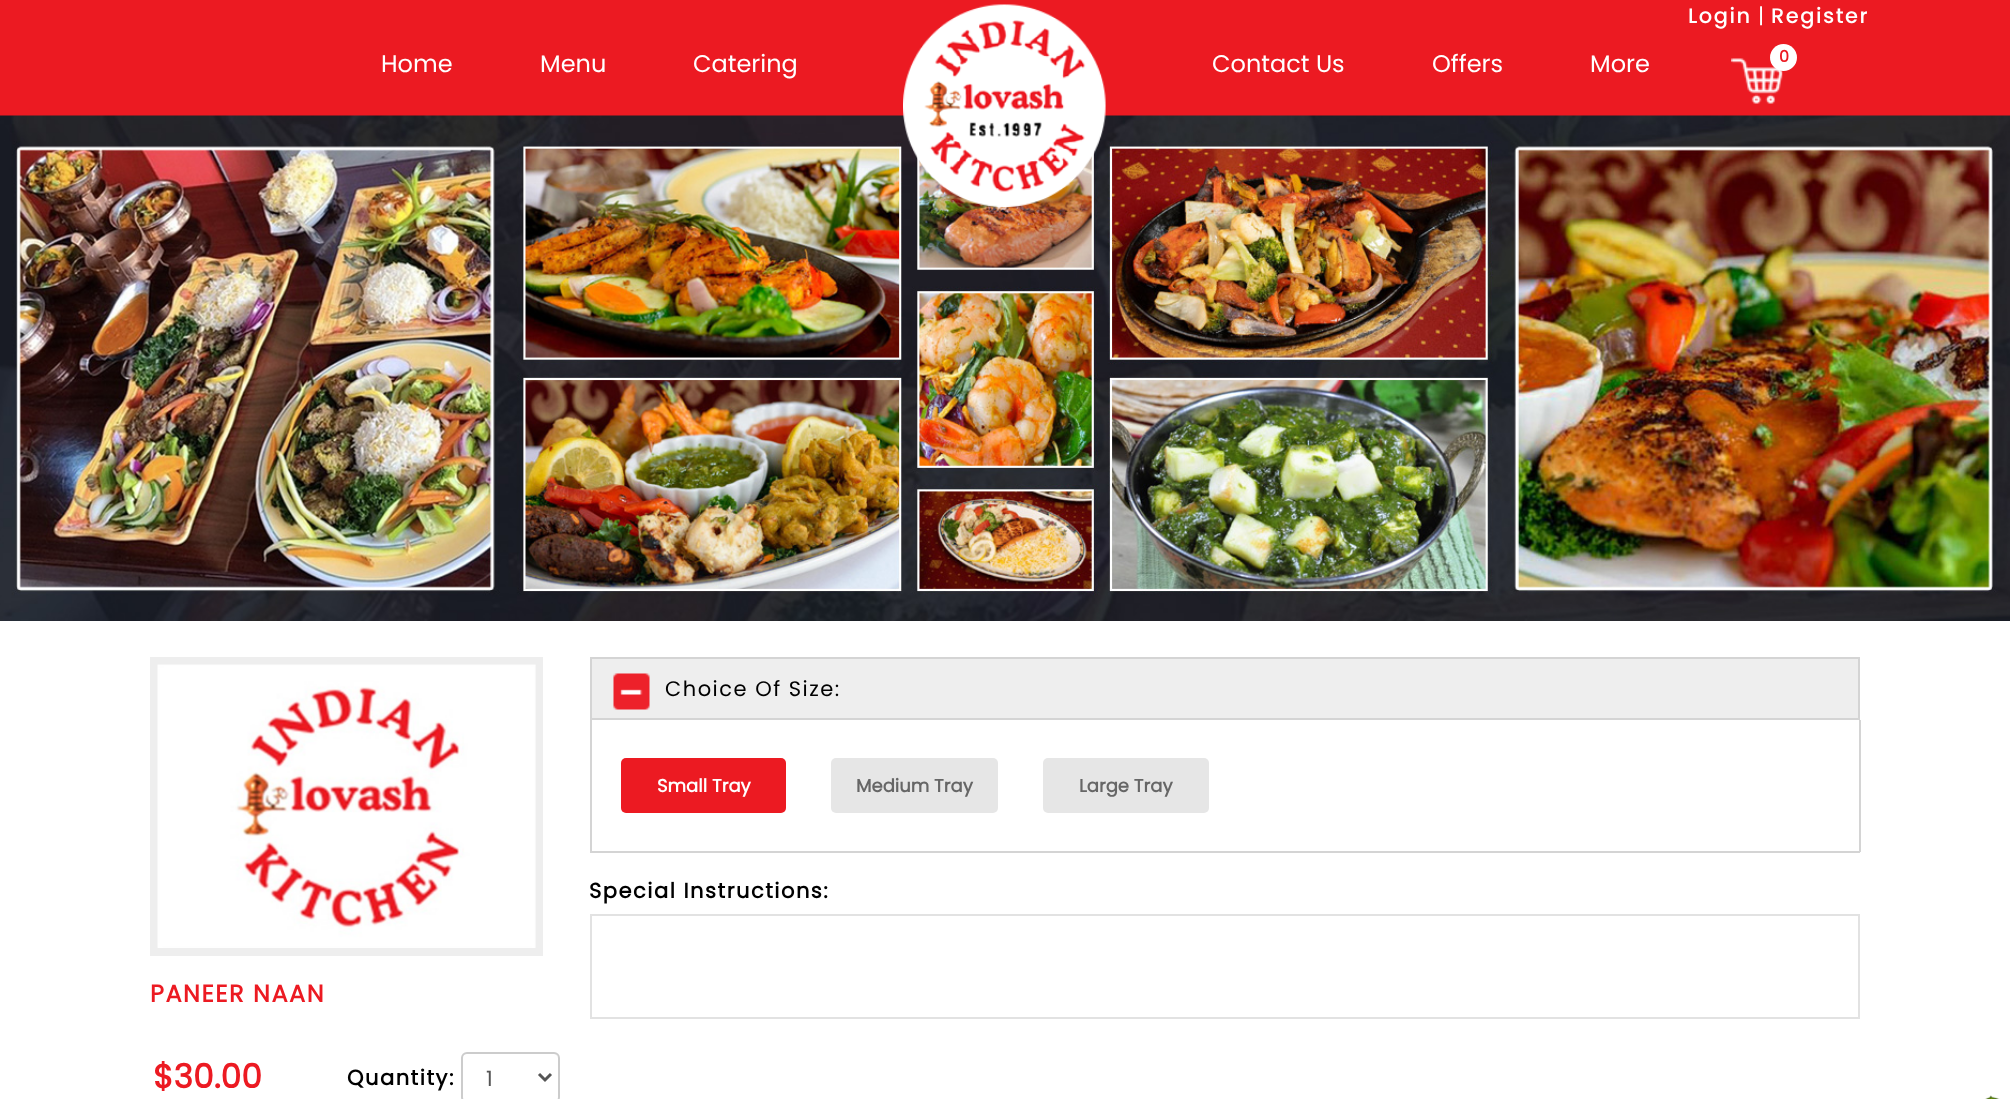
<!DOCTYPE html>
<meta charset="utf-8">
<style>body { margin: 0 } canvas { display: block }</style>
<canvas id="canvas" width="2010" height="1099"></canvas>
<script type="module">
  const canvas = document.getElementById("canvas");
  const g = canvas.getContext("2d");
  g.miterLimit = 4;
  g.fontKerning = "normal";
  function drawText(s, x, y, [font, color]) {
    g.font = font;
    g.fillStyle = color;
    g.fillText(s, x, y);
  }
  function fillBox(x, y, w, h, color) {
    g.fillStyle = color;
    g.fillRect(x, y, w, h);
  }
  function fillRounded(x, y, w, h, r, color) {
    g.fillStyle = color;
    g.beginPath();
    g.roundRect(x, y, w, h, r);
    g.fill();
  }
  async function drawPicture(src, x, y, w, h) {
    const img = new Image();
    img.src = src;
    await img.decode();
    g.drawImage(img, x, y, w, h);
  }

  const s1 = ["24px Poppins", "#FFFFFF"];
  const s2 = ["500 21px Poppins", "#FFFFFF"];
  const s3 = ["21px Poppins", "#FFFFFF"];
  const s4 = ["bold 16px Poppins", "#EC1A22"];
  const s5 = ["21px Poppins", "#000000"];
  const s6 = ["bold 18px Poppins", "#FFFFFF"];
  const s7 = ["bold 18px Poppins", "#666666"];
  const s8 = ["bold 21px Poppins", "#000000"];
  const s9 = ["bold 24px Poppins", "#EC1A22"];
  const s10 = ["bold 33px Poppins", "#EC1A22"];
  const s11 = ["21px Poppins", "#555555"];

  fillBox(0, 0, 2010, 1099, "#FFFFFF");
  fillBox(0, 0, 2010, 116, "#EC1A22");
  drawText("Home", 381, 72, s1);
  drawText("Menu", 540, 72, s1);
  drawText("Catering", 693, 72, s1);
  await drawPicture("pic3.png", 0, 115, 2010, 506);
  await drawPicture("pic1.png", 903, 4, 203, 203);
  drawText("Contact Us", 1212, 72, s1);
  drawText("Offers", 1432, 72, s1);
  drawText("More", 1590, 72, s1);
  g.letterSpacing = "1.5px";
  drawText("Login", 1688, 23, s2);
  drawText("|", 1758, 23, s3);
  drawText("Register", 1771, 23, s2);
  await drawPicture("pic2.png", 1731, 58, 52, 46);
  g.beginPath();
  g.arc(1783.5, 57.5, 13.5, 0, Math.PI * 2);
  g.fill();
  drawText("0", 1779, 62, s4);
  fillBox(592, 659, 1266, 59, "#EEEEEE");
  await drawPicture("pic4.png", 613, 673, 37, 37);
  g.strokeStyle = "#D4D4D4";
  g.lineWidth = 2;
  g.strokeRect(591, 658, 1268, 61);
  drawText("Choice Of Size:", 665, 696, s5);
  fillBox(1859, 720, 2, 132, "#D4D4D4");
  fillBox(590, 851, 1270, 2, "#D4D4D4");
  fillBox(590, 720, 2, 132, "#D4D4D4");
  fillRounded(621, 758, 165, 55, 5, "#EC1A22");
  g.letterSpacing = "0px";
  drawText("Small Tray", 657, 792, s6);
  fillRounded(831, 758, 167, 55, 5, "#E6E6E6");
  drawText("Medium Tray", 856, 792, s7);
  fillRounded(1043, 758, 166, 55, 5, "#E6E6E6");
  drawText("Large Tray", 1079, 792, s7);
  g.letterSpacing = "1.5px";
  drawText("Special Instructions:", 589, 898, s8);
  g.strokeStyle = "#E2E2E2";
  g.strokeRect(591, 915, 1268, 103);
  g.strokeStyle = "#EEEEEE";
  g.lineWidth = 8;
  g.strokeRect(154, 661, 385, 291);
  await drawPicture("pic5.png", 157, 664, 379, 284);
  drawText("PANEER NAAN", 150, 1002, s9);
  g.letterSpacing = "0px";
  drawText("$30.00", 153, 1088, s10);
  g.letterSpacing = "1.5px";
  drawText("Quantity:", 347, 1085, s8);
  g.fillStyle = "#ECECEC";
  g.beginPath();
  g.moveTo(466, 1054);
  g.lineTo(554, 1054);
  g.bezierCurveTo(556, 1054, 558, 1057, 558, 1059);
  g.bezierCurveTo(558, 1049, 544, 1053, 539, 1053);
  g.lineTo(481, 1053);
  g.bezierCurveTo(476, 1053, 462, 1049, 462, 1059);
  g.bezierCurveTo(462, 1057, 464, 1054, 466, 1054);
  g.closePath();
  g.fill();
  g.beginPath();
  g.roundRect(462, 1053, 97, 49, 5);
  g.strokeStyle = "#CCCCCC";
  g.lineWidth = 2;
  g.stroke();
  g.beginPath();
  g.moveTo(539, 1074);
  g.lineTo(545, 1080);
  g.lineTo(551, 1074);
  g.strokeStyle = "#555555";
  g.lineWidth = 3;
  g.stroke();
  g.letterSpacing = "0px";
  drawText("1", 486, 1086, s11);
  await drawPicture("pic6.png", 1985, 1095, 15, 4);
</script>
